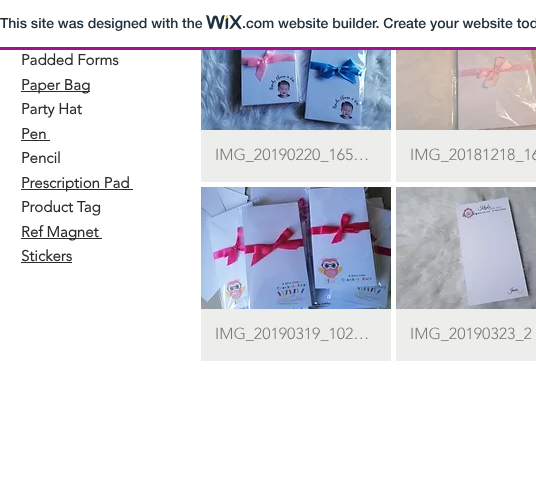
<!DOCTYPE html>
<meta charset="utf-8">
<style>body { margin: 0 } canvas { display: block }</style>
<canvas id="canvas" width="536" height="480"></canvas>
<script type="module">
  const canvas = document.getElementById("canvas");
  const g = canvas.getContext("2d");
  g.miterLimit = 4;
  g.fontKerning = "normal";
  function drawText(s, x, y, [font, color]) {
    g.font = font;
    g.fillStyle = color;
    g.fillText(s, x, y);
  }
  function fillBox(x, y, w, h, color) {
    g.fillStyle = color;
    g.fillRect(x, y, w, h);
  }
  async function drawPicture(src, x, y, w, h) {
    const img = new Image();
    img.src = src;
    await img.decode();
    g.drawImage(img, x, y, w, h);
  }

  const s1 = ["500 14px 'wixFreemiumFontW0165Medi'", "#20303C"];
  const s2 = ["bold 15px 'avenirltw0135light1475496'", "#2C2C2B"];
  const s3 = ["300 16px 'avenirltw0135light1475496'", "#7C7878"];

  fillBox(0, 0, 536, 480, "#FFFFFF");
  fillBox(0, 47, 536, 3, "#A0138E");
  drawText("This site was designed with the", 0, 28, s1);
  await drawPicture("pic1.png", 206, 15, 36, 15);
  drawText(".com website builder. Create your website tod", 242, 28, s1);
  drawText("Padded Forms", 21, 65, s2);
  fillBox(21, 91, 69, 1, "#2C2C2B");
  drawText("Paper Bag", 21, 90, s2);
  drawText("Party Hat", 21, 114, s2);
  drawText("Pen", 21, 139, s2);
  fillBox(21, 140, 29, 1, "#2C2C2B");
  drawText("Pencil", 21, 163, s2);
  fillBox(21, 189, 112, 1, "#2C2C2B");
  drawText("Prescription Pad", 21, 188, s2);
  drawText("Product Tag", 21, 212, s2);
  fillBox(21, 238, 81, 1, "#2C2C2B");
  drawText("Ref Magnet", 21, 237, s2);
  drawText("Stickers", 21, 261, s2);
  fillBox(21, 262, 51, 1, "#2C2C2B");
  await drawPicture("pic2.png", 201, 50, 190, 80);
  fillBox(201, 130, 190, 52, "#EDEDEC");
  drawText("IMG_20190220_165…", 215, 160, s3);
  await drawPicture("pic3.png", 396, 50, 140, 80);
  fillBox(396, 130, 140, 52, "#EDEDEC");
  drawText("IMG_20181218_16", 410, 160, s3);
  await drawPicture("pic4.png", 201, 187, 190, 122);
  fillBox(201, 309, 190, 52, "#EDEDEC");
  drawText("IMG_20190319_102…", 215, 339, s3);
  await drawPicture("pic5.png", 396, 187, 140, 122);
  fillBox(396, 309, 140, 52, "#EDEDEC");
  drawText("IMG_20190323_2", 410, 339, s3);
</script>
